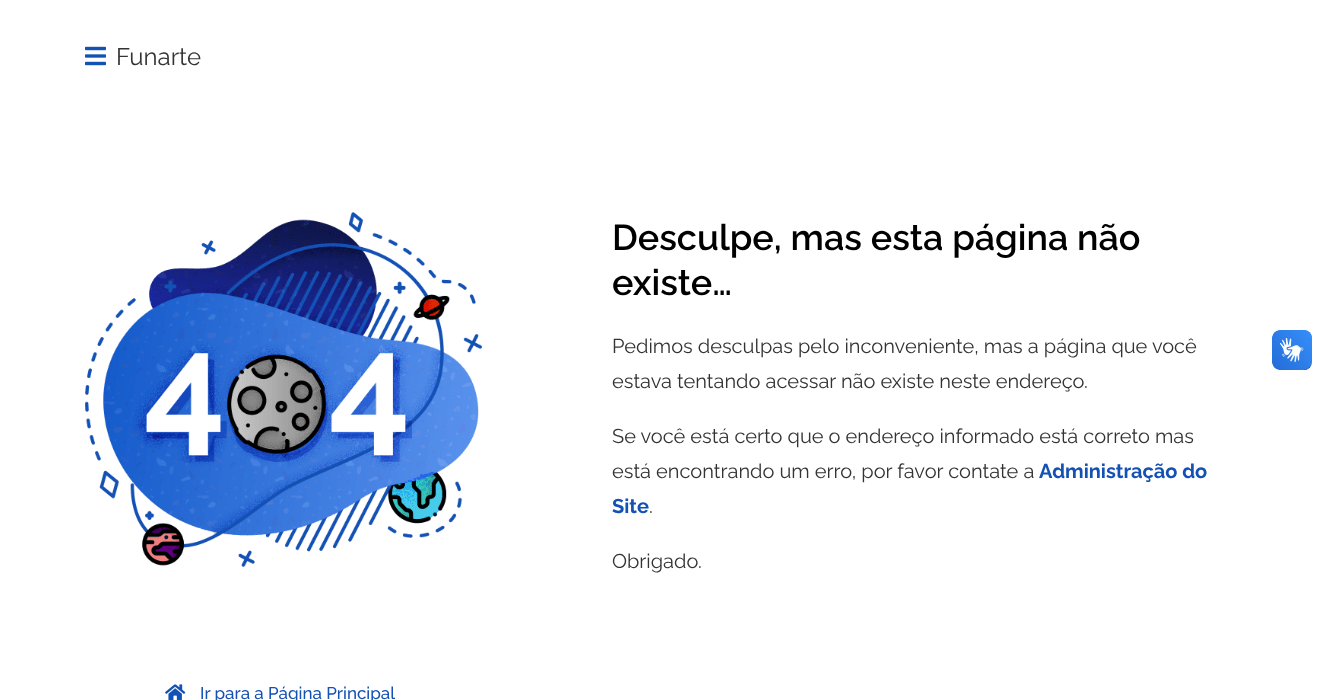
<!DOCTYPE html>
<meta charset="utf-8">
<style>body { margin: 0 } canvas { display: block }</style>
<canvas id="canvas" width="1322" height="700"></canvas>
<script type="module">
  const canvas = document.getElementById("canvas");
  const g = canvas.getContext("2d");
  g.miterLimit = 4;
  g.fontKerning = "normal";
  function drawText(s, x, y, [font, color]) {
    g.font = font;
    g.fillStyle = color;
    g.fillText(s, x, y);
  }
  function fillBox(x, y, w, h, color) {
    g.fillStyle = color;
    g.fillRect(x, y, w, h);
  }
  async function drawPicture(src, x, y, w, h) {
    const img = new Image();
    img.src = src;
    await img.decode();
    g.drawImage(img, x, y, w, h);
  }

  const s1 = ["24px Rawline", "#333333"];
  const s2 = ["600 36px Rawline", "#000000"];
  const s3 = ["20px Rawline", "#333333"];
  const s4 = ["bold 20px Rawline", "#1351B4"];
  const s5 = ["500 17px Rawline", "#1351B4"];

  fillBox(0, 0, 1322, 700, "#FFFFFF");
  await drawPicture("pic1.png", 85, 46, 21, 20);
  drawText("Funarte", 116, 65, s1);
  await drawPicture("pic2.png", 85, 212, 397, 355);
  drawText("Desculpe, mas esta página não", 612, 250, s2);
  drawText("existe…", 612, 295, s2);
  drawText("Pedimos desculpas pelo inconveniente, mas a página que você", 612, 353, s3);
  drawText("estava tentando acessar não existe neste endereço.", 612, 388, s3);
  drawText("Se você está certo que o endereço informado está correto mas", 612, 443, s3);
  drawText("está encontrando um erro, por favor contate a", 612, 478, s3);
  drawText("Administração do", 1039, 478, s4);
  drawText("Site", 612, 513, s4);
  drawText(".", 649, 513, s3);
  drawText("Obrigado.", 612, 568, s3);
  await drawPicture("pic3.png", 165, 684, 21, 16);
  drawText("Ir para a Página Principal", 200, 699, s5);
  await drawPicture("pic4.png", 1272, 330, 40, 40);
  await drawPicture("pic5.png", 1272, 330, 40, 40);
</script>
